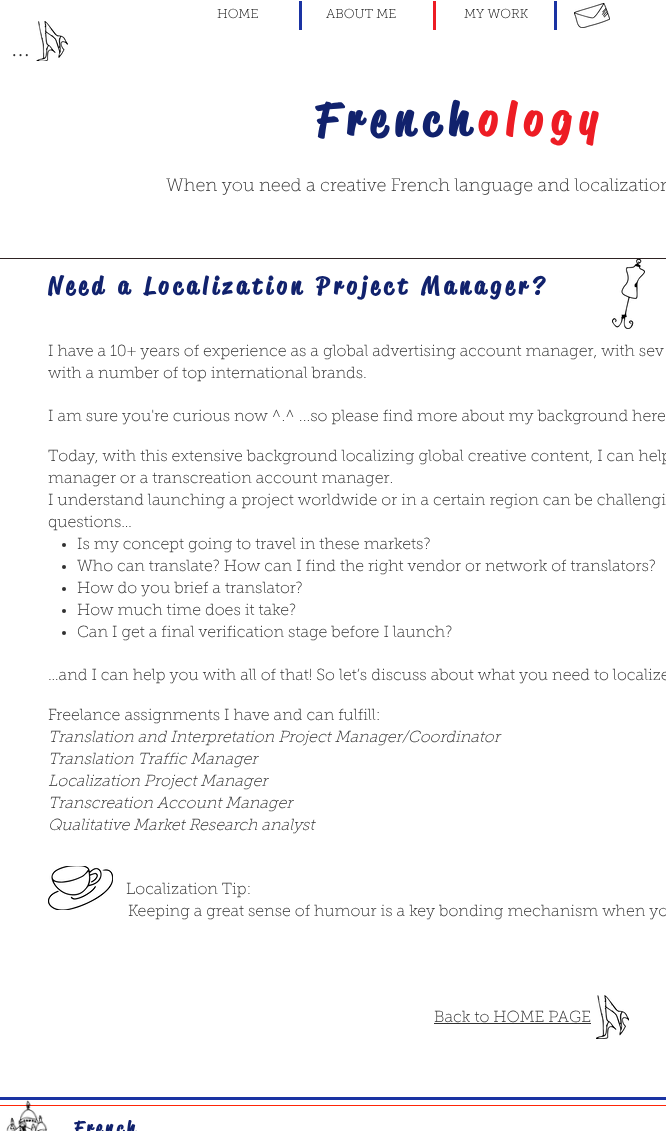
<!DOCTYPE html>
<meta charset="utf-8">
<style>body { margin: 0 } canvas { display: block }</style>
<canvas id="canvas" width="666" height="1131"></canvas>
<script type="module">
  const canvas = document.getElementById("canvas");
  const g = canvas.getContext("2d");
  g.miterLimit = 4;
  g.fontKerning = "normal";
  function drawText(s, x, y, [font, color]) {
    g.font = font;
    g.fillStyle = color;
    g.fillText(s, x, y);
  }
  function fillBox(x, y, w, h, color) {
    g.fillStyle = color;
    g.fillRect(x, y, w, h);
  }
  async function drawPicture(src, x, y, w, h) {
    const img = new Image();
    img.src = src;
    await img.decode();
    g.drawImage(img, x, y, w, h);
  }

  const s1 = ["100 13px 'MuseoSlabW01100'", "#000000"];
  const s2 = ["18px Caudex", "#303030"];
  const s3 = ["bold 45px 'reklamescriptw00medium'", "#11226D"];
  const s4 = ["bold 45px 'reklamescriptw00medium'", "#ED1C24"];
  const s5 = ["100 18px 'MuseoSlabW01100'", "#303030"];
  const s6 = ["bold 24px 'reklamescriptw00medium'", "#11226D"];
  const s7 = ["100 16px 'MuseoSlabW01100'", "#303030"];
  const s8 = ["italic 100 16px 'MuseoSlabW01100'", "#303030"];
  const s9 = ["bold 18px 'reklamescriptw00medium'", "#11226D"];

  fillBox(0, 0, 666, 1131, "#FFFFFF");
  fillBox(299, 1, 3, 29, "#1A33A3");
  fillBox(433, 1, 3, 29, "#ED1C24");
  fillBox(554, 1, 3, 29, "#1A33A3");
  await drawPicture("pic1.png", 574, 3, 36, 25);
  drawText("HOME", 217, 18, s1);
  drawText("ABOUT ME", 326, 18, s1);
  drawText("MY WORK", 464, 18, s1);
  g.letterSpacing = "2px";
  drawText("...", 12, 56, s2);
  await drawPicture("pic2.png", 36, 21, 32, 40);
  g.letterSpacing = "9px";
  drawText("French", 315, 135, s3);
  drawText("ology", 478, 135, s4);
  g.letterSpacing = "0px";
  drawText("When you need a creative French language and localization", 166, 191, s5);
  fillBox(0, 258, 666, 1, "#2E2323");
  await drawPicture("pic3.png", 612, 259, 33, 70);
  g.letterSpacing = "4.8px";
  drawText("Need a Localization Project Manager?", 48, 294, s6);
  g.letterSpacing = "0px";
  drawText("I have a 10+ years of experience as a global advertising account manager, with sev", 48, 356, s7);
  drawText("with a number of top international brands.", 48, 378, s7);
  drawText("I am sure you're curious now ^.^ ...so please find more about my background here", 48, 421, s7);
  drawText("Today, with this extensive background localizing global creative content, I can help", 48, 461, s7);
  drawText("manager or a transcreation account manager.", 48, 483, s7);
  drawText("I understand launching a project worldwide or in a certain region can be challengi", 48, 505, s7);
  drawText("questions…", 48, 527, s7);
  g.beginPath();
  g.arc(64, 545, 2, 0, Math.PI * 2);
  g.fill();
  drawText("Is my concept going to travel in these markets?", 77, 549, s7);
  g.beginPath();
  g.arc(64, 567, 2, 0, Math.PI * 2);
  g.fill();
  drawText("Who can translate? How can I find the right vendor or network of translators?", 77, 571, s7);
  g.beginPath();
  g.arc(64, 589, 2, 0, Math.PI * 2);
  g.fill();
  drawText("How do you brief a translator?", 77, 593, s7);
  g.beginPath();
  g.arc(64, 611, 2, 0, Math.PI * 2);
  g.fill();
  drawText("How much time does it take?", 77, 615, s7);
  g.beginPath();
  g.arc(64, 633, 2, 0, Math.PI * 2);
  g.fill();
  drawText("Can I get a final verification stage before I launch?", 77, 637, s7);
  drawText("…and I can help you with all of that! So let’s discuss about what you need to localize", 48, 680, s7);
  drawText("Freelance assignments I have and can fulfill:", 48, 720, s7);
  drawText("Translation and Interpretation Project Manager/Coordinator", 48, 742, s8);
  drawText("Translation Traffic Manager", 48, 764, s8);
  drawText("Localization Project Manager", 48, 786, s8);
  drawText("Transcreation Account Manager", 48, 808, s8);
  drawText("Qualitative Market Research analyst", 48, 830, s8);
  drawText("Localization Tip:", 126, 894, s7);
  drawText("Keeping a great sense of humour is a key bonding mechanism when yo", 128, 916, s7);
  drawText("Back to HOME PAGE", 434, 1022, s7);
  fillBox(434, 1023, 157, 1, "#303030");
  await drawPicture("pic4.png", 48, 866, 65, 44);
  await drawPicture("pic5.png", 596, 995, 33, 44);
  fillBox(0, 1097, 666, 3, "#1A33A3");
  fillBox(0, 1105, 666, 1, "#FF2508");
  await drawPicture("pic6.png", 6, 1100, 42, 31);
  g.letterSpacing = "3.5px";
  drawText("French", 74, 1134, s9);
</script>
